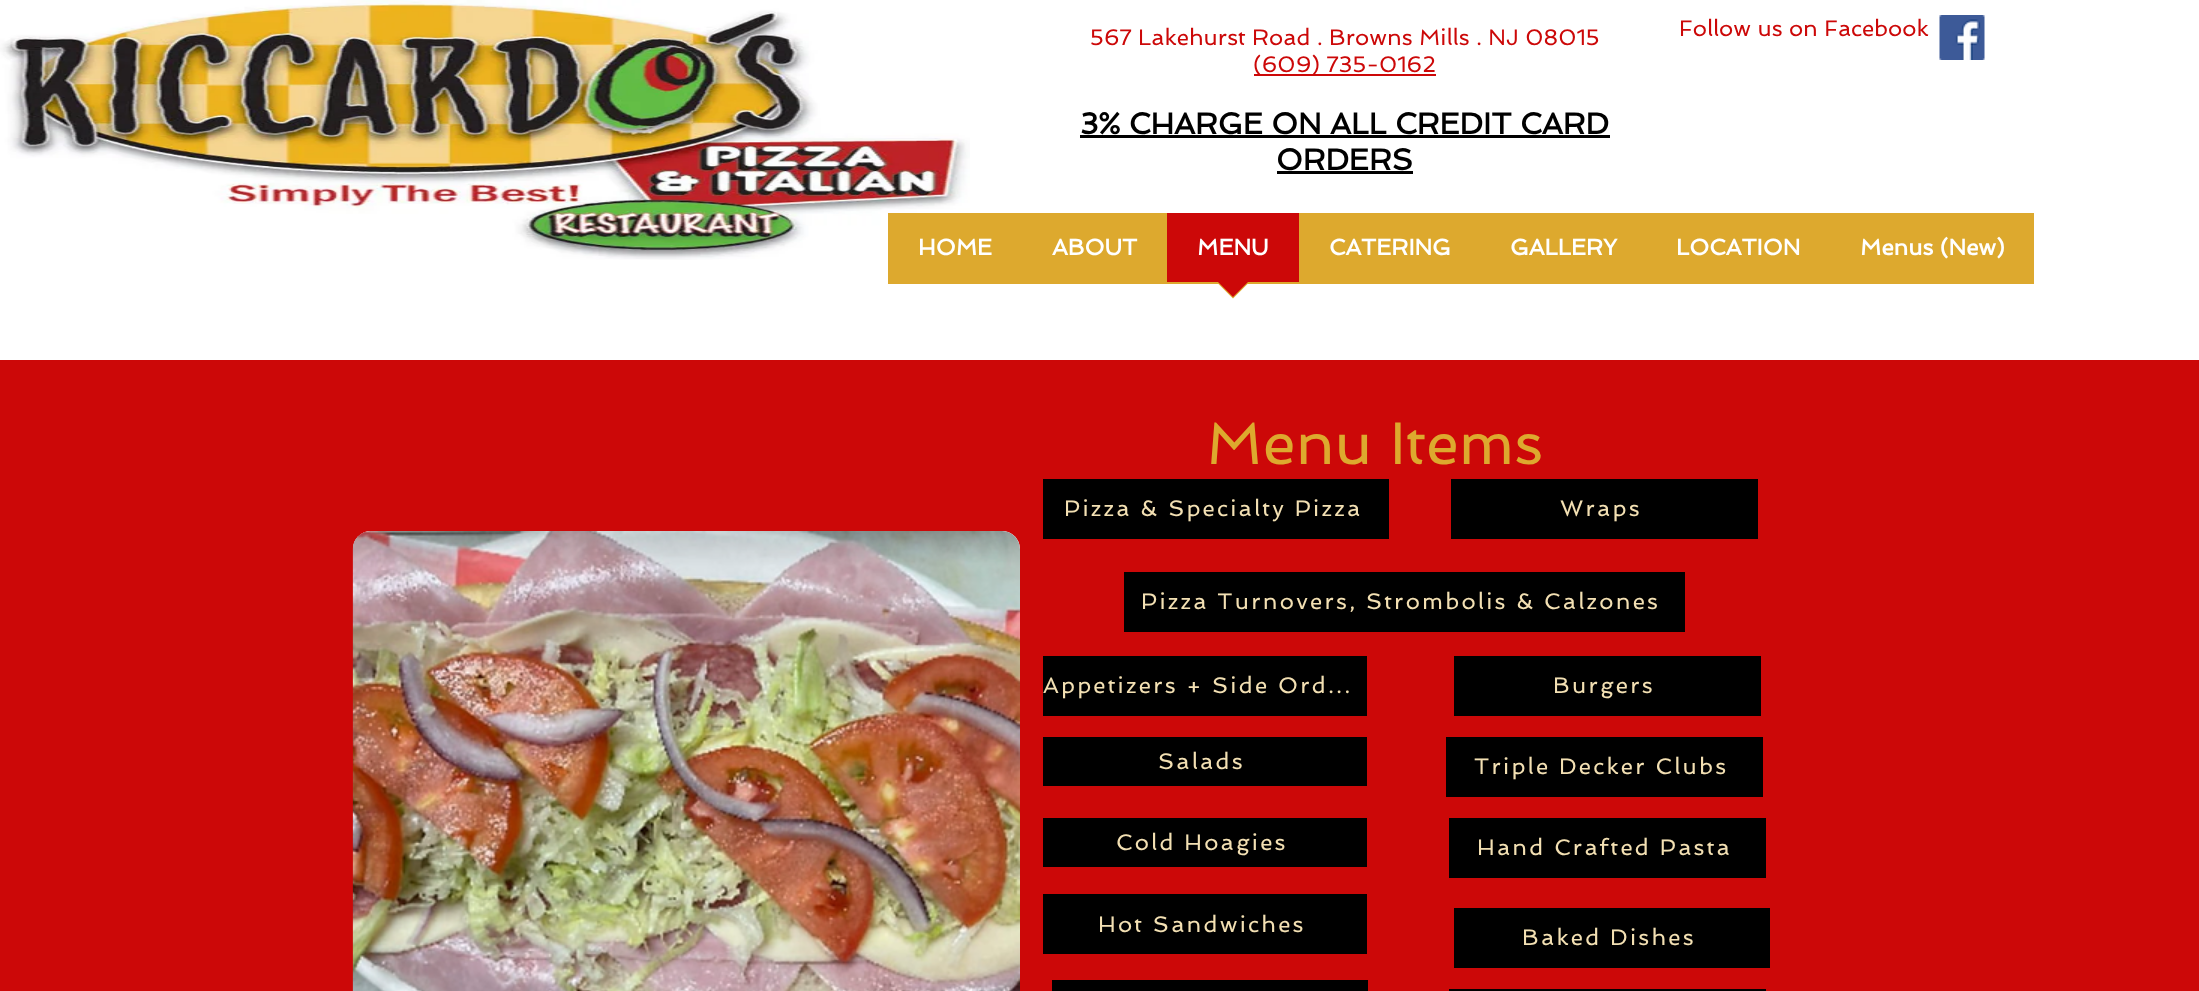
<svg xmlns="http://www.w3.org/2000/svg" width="2199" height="991">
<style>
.a{font:22.5px Spinnaker;fill:#cc0808}
.b{font:bold 30px Spinnaker;fill:#000}
.c{font:bold 22.5px Spinnaker;fill:#fff}
.d{font:60px Spinnaker;fill:#dda92e}
.e{font:22.5px Spinnaker;letter-spacing:2.25px;fill:#f3e0b3}
</style>
<rect width="100%" height="100%" fill="#fff"/>
<image href="1.png" x="0" y="0" width="970" height="260"/>
<path fill="#cc0808" d="M1254 74h182v2H1254z"/>
<path fill="#000" d="M1080 135h530v3H1080z"/>
<path fill="#000" d="M1277 171h136v3H1277z"/>
<image href="2.png" x="1939" y="15" width="46" height="45"/>
<path fill="#dda92e" d="M888 213h1146v71H888z"/>
<path fill="#cc0808" d="M1167 213h132v69H1167z"/>
<path fill="#dda92e" d="M1216.5 282h33l-16.5 16.5z"/>
<path fill="#cc0808" d="M1218 282h30l-15 15z"/>
<path fill="#cc0808" d="M0 360h2199v631H0z"/>
<path fill="#000" d="M1043 479h346v60H1043z"/>
<path fill="#000" d="M1451 479h307v60H1451z"/>
<rect fill="#fdfdfe" x="353" y="531" width="667" height="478" rx="18"/>
<image href="3.png" x="352" y="531" width="668" height="460"/>
<path fill="#000" d="M1124 572h561v60H1124z"/>
<path fill="#000" d="M1043 656h324v60H1043z"/>
<path fill="#000" d="M1454 656h307v60H1454z"/>
<path fill="#000" d="M1043 737h324v49H1043z"/>
<path fill="#000" d="M1446 737h317v60H1446z"/>
<path fill="#000" d="M1043 818h324v49H1043z"/>
<path fill="#000" d="M1449 818h317v60H1449z"/>
<path fill="#000" d="M1043 894h324v60H1043z"/>
<path fill="#000" d="M1454 908h316v60H1454z"/>
<path fill="#000" d="M1052 980h316v11H1052z"/>
<path fill="#000" d="M1449 989h317v2H1449z"/>
<text class="a" x="1090" y="45">567 Lakehurst Road . Browns Mills . NJ 08015</text>
<text class="a" x="1253" y="72">(609) 735-0162</text>
<text class="b" x="1080" y="134">3% CHARGE ON ALL CREDIT CARD</text>
<text class="b" x="1276" y="170">ORDERS</text>
<text class="a" x="1679" y="36">Follow us on Facebook</text>
<text class="c" x="918" y="255">HOME</text>
<text class="c" x="1052" y="255">ABOUT</text>
<text class="c" x="1197" y="255">MENU</text>
<text class="c" x="1329" y="255">CATERING</text>
<text class="c" x="1510" y="255">GALLERY</text>
<text class="c" x="1676" y="255">LOCATION</text>
<text class="c" x="1860" y="255">Menus (New)</text>
<text class="d" x="1206" y="464">Menu Items</text>
<text class="e" x="1064" y="516">Pizza &amp; Specialty Pizza</text>
<text class="e" x="1560" y="516">Wraps</text>
<text class="e" x="1141" y="609">Pizza Turnovers, Strombolis &amp; Calzones</text>
<text class="e" x="1043" y="693">Appetizers + Side Ord...</text>
<text class="e" x="1553" y="693">Burgers</text>
<text class="e" x="1158" y="769">Salads</text>
<text class="e" x="1474" y="774">Triple Decker Clubs</text>
<text class="e" x="1116" y="850">Cold Hoagies</text>
<text class="e" x="1477" y="855">Hand Crafted Pasta</text>
<text class="e" x="1098" y="932">Hot Sandwiches</text>
<text class="e" x="1522" y="945">Baked Dishes</text>
</svg>
